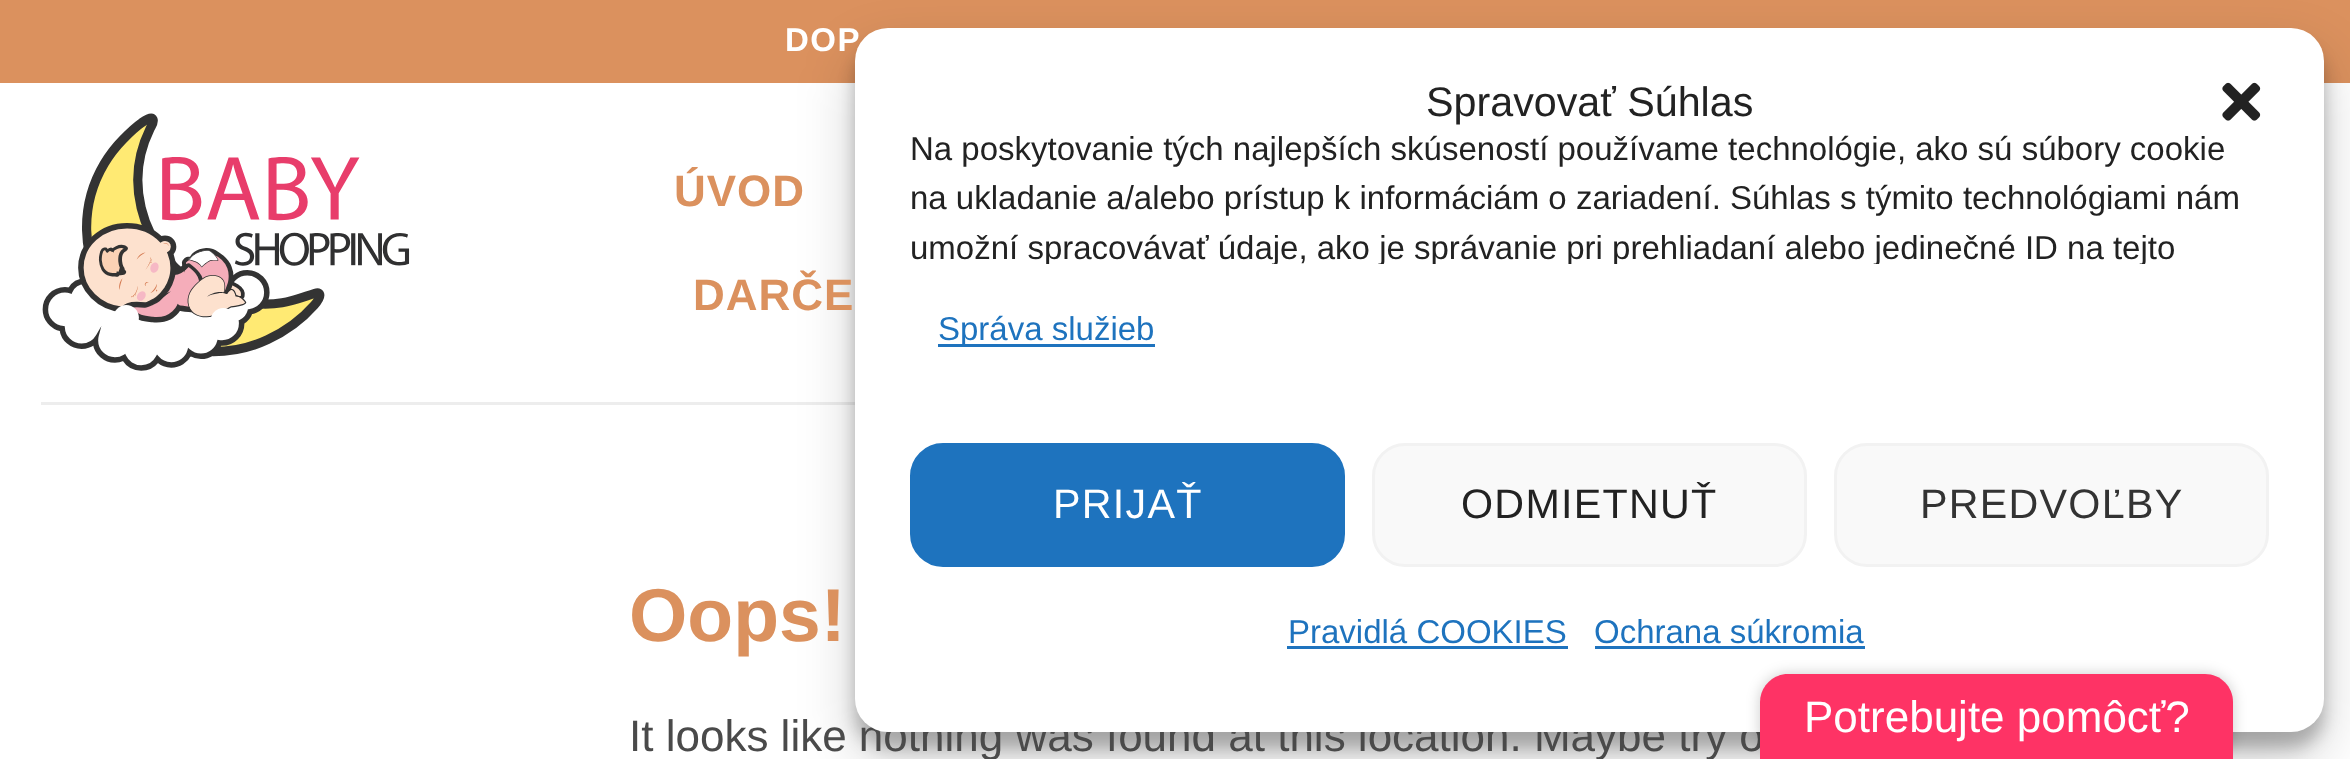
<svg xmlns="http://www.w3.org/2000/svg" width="2350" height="759">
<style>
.a{font:bold 33px Liberation Sans;letter-spacing:1.5px;fill:#fff}
.b{font:bold 44px Liberation Sans;letter-spacing:1px;fill:#db915e}
.c{font:bold 75px Liberation Sans;fill:#db915e}
.d{font:44px Liberation Sans;fill:#4a4a4a}
.e{font:41.25px Liberation Sans;fill:#222}
.f{font:33px Liberation Sans;fill:#222}
.g{font:33px Liberation Sans;fill:#1e73be}
.h{font:41.25px Liberation Sans;letter-spacing:1.25px;fill:#fff}
.i{font:41.25px Liberation Sans;letter-spacing:1.25px;fill:#222}
.j{font:41.25px Liberation Sans;letter-spacing:1.25px;fill:#333}
.k{font:44px Liberation Sans;fill:#fff}
</style>
<defs>
<clipPath id="clip1"><path d="M910 124h1359v140H910z"/></clipPath>
</defs>
<rect width="100%" height="100%" fill="#fff"/>
<path fill="#db915e" d="M0 0h2350v83H0z"/>
<image href="1.png" x="42" y="113" width="368" height="258"/>
<path fill="#ededed" d="M41 402h814v3H41z"/>
<rect fill="#0000003b" filter="blur(8px)" x="855" y="44" width="1469" height="704" rx="33"/>
<rect fill="#00000030" filter="blur(27.5px)" x="855" y="55" width="1469" height="704" rx="33"/>
<text class="a" x="785" y="51">DOP</text>
<text class="b" x="674" y="206">ÚVOD</text>
<text class="b" x="693" y="310">DARČE</text>
<text class="c" x="629" y="641">Oops!</text>
<text class="d" x="629" y="751">It looks like nothing was found at this location. Maybe try o</text>
<rect fill="#fff" x="855" y="28" width="1469" height="704" rx="33"/>
<text class="e" x="1426" y="116">Spravovať Súhlas</text>
<image href="2.png" x="2222" y="82" width="39" height="39"/>
<text class="f" x="910" y="160">Na poskytovanie tých najlepších skúseností používame technológie, ako sú súbory cookie</text>
<text class="f" x="910" y="209">na ukladanie a/alebo prístup k informáciám o zariadení. Súhlas s týmito technológiami nám</text>
<g clip-path="url(#clip1)">
<text class="f" x="910" y="259">umožní spracovávať údaje, ako je správanie pri prehliadaní alebo jedinečné ID na tejto</text>
</g>
<path fill="#1e73be" d="M938 344h217v3H938z"/>
<text class="g" x="938" y="340">Správa služieb</text>
<rect fill="#1e73be" stroke="#1e73be" stroke-width="3" x="911.5" y="444.5" width="432" height="121" rx="31.5"/>
<text class="h" x="1053" y="518">PRIJAŤ</text>
<rect fill="#f9f9f9" stroke="#f2f2f2" stroke-width="3" x="1373.5" y="444.5" width="432" height="121" rx="31.5"/>
<text class="i" x="1461" y="518">ODMIETNUŤ</text>
<rect fill="#f9f9f9" stroke="#f2f2f2" stroke-width="3" x="1835.5" y="444.5" width="432" height="121" rx="31.5"/>
<text class="j" x="1920" y="518">PREDVOĽBY</text>
<text class="g" x="1288" y="643">Pravidlá COOKIES</text>
<path fill="#1e73be" d="M1287 646h281v3H1287z"/>
<text class="g" x="1594" y="643">Ochrana súkromia</text>
<path fill="#1e73be" d="M1595 646h270v3H1595z"/>
<rect fill="#00000033" filter="blur(7px)" x="1760" y="674" width="473" height="85" rx="28"/>
<path fill="#fe3365" d="M1788 674h417c15.5 0 28 12.5 28 28v57h-473v-57c0-15.5 12.5-28 28-28z"/>
<text class="k" x="1804" y="732">Potrebujte pomôcť?</text>
</svg>
